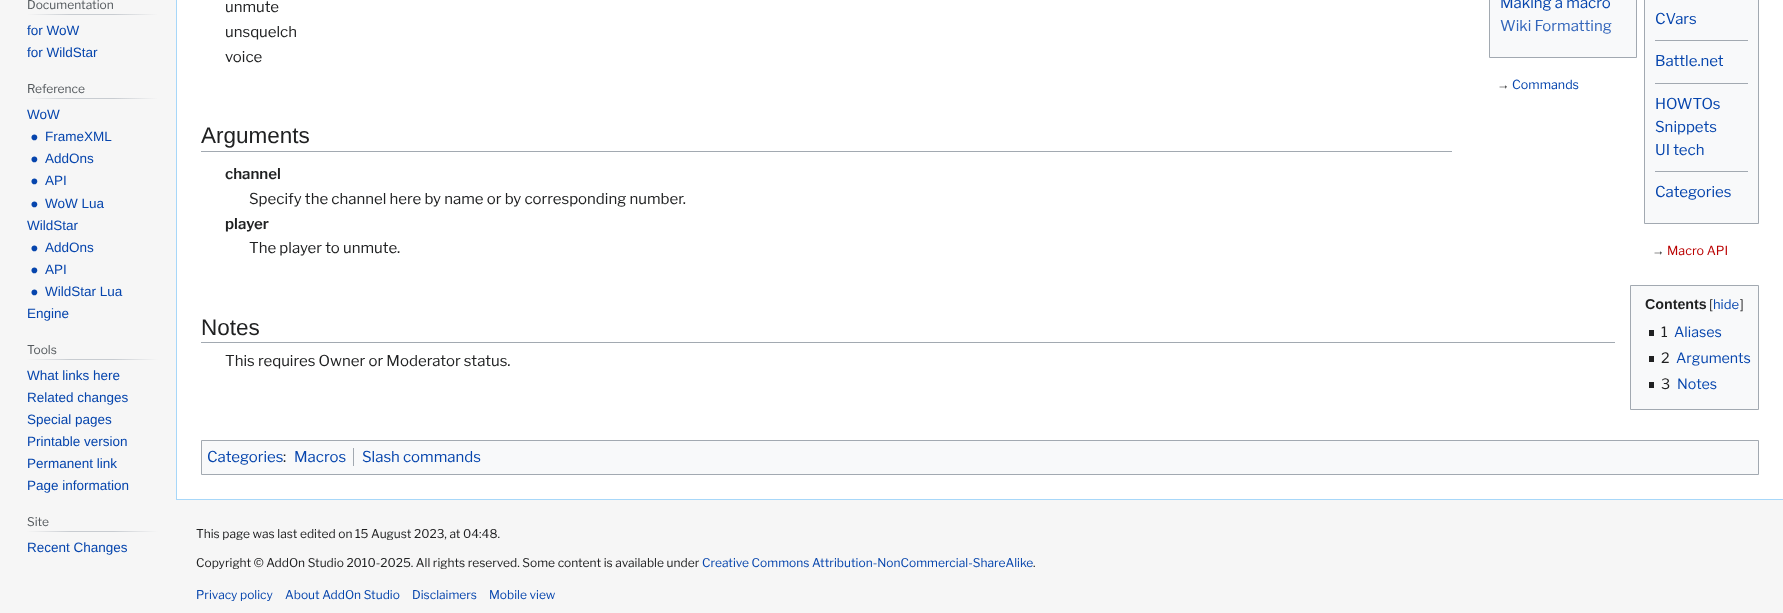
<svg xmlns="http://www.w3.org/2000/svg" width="1783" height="613">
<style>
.a{font:12px Libre Franklin;fill:#54595d}
.b{font:13.5px Liberation Sans;fill:#0645ad}
.c{font:13.5px FreeSans;fill:#0645ad}
.d{font:15px Libre Franklin;fill:#202122}
.e{font:15px Libre Franklin;fill:#0645ad}
.f{font:15px Libre Franklin;fill:#36b}
.g{font:12.5px Liberation Sans;fill:#202122}
.h{font:12.5px Libre Franklin;fill:#0645ad}
.i{font:12.5px Libre Franklin;fill:#ba0000}
.j{font:22.5px Liberation Sans;fill:#202122}
.k{font:600 15px Libre Franklin;fill:#202122}
.l{font:bold 14.25px Liberation Sans;fill:#202122}
.m{font:13px Libre Franklin;fill:#202122}
.n{font:13px Libre Franklin;fill:#0645ad}
.o{font:14.25px Libre Franklin;fill:#202122}
.p{font:14.25px Libre Franklin;fill:#0645ad}
.q{font:12px Libre Franklin;fill:#202122}
.r{font:12px Libre Franklin;fill:#0645ad}
</style>
<defs>
<linearGradient id="g1" gradientUnits="userSpaceOnUse" x1="27" y1="15" x2="158" y2="14"><stop offset="0" stop-color="#f6f6f6"/><stop offset="0.33" stop-color="#c8ccd1"/><stop offset="0.66" stop-color="#c8ccd1"/><stop offset="1" stop-color="#f6f6f6"/></linearGradient>
<linearGradient id="g2" gradientUnits="userSpaceOnUse" x1="27" y1="99" x2="158" y2="99"><stop offset="0" stop-color="#f6f6f6"/><stop offset="0.33" stop-color="#c8ccd1"/><stop offset="0.66" stop-color="#c8ccd1"/><stop offset="1" stop-color="#f6f6f6"/></linearGradient>
<linearGradient id="g3" gradientUnits="userSpaceOnUse" x1="27" y1="360" x2="158" y2="360"><stop offset="0" stop-color="#f6f6f6"/><stop offset="0.33" stop-color="#c8ccd1"/><stop offset="0.66" stop-color="#c8ccd1"/><stop offset="1" stop-color="#f6f6f6"/></linearGradient>
<linearGradient id="g4" gradientUnits="userSpaceOnUse" x1="27" y1="532" x2="158" y2="532"><stop offset="0" stop-color="#f6f6f6"/><stop offset="0.33" stop-color="#c8ccd1"/><stop offset="0.66" stop-color="#c8ccd1"/><stop offset="1" stop-color="#f6f6f6"/></linearGradient>
</defs>
<rect width="100%" height="100%" fill="#f6f6f6"/>
<path fill="url(#g1)" d="M27 14h131v1H27z"/>
<path fill="url(#g2)" d="M27 98h131v1H27z"/>
<path fill="url(#g3)" d="M27 359h131v1H27z"/>
<path fill="url(#g4)" d="M27 531h131v1H27z"/>
<path fill="#fff" d="M177 0h1606v499H177z"/>
<path fill="#a7d7f9" d="M176 499h1607v1H176z"/>
<path fill="#a7d7f9" d="M176 0h1v500H176z"/>
<path fill="#f8f9fa" stroke="#a2a9b1" d="M1489.5 -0.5h147v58H1489.5z"/>
<path fill="#f8f9fa" stroke="#a2a9b1" d="M1644.5 -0.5h114v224H1644.5z"/>
<path fill="#a2a9b1" d="M1655 40h93v1H1655z"/>
<path fill="#a2a9b1" d="M1655 83h93v1H1655z"/>
<path fill="#a2a9b1" d="M1655 171h93v1H1655z"/>
<path fill="#a2a9b1" d="M201 151h1251v1H201z"/>
<path fill="#a2a9b1" d="M201 342h1414v1H201z"/>
<path fill="#f8f9fa" stroke="#a2a9b1" d="M1630.5 285.5h128v124H1630.5z"/>
<path fill="#202122" d="M1649 330h5v6H1649z"/>
<path fill="#202122" d="M1649 356h5v6H1649z"/>
<path fill="#202122" d="M1649 382h5v6H1649z"/>
<path fill="#f8f9fa" stroke="#a2a9b1" d="M201.5 440.5h1557v34H201.5z"/>
<path fill="#a2a9b1" d="M353 448h1v18H353z"/>
<text class="a" x="27" y="9">Documentation</text>
<text class="b" x="27" y="35">for WoW</text>
<text class="b" x="27" y="57">for WildStar</text>
<text class="a" x="27" y="93">Reference</text>
<text class="b" x="27" y="119">WoW</text>
<text class="c" x="31" y="141">⦁</text>
<text class="b" x="45" y="141">FrameXML</text>
<text class="c" x="31" y="163">⦁</text>
<text class="b" x="45" y="163">AddOns</text>
<text class="c" x="31" y="185">⦁</text>
<text class="b" x="45" y="185">API</text>
<text class="c" x="31" y="208">⦁</text>
<text class="b" x="45" y="208">WoW Lua</text>
<text class="b" x="27" y="230">WildStar</text>
<text class="c" x="31" y="252">⦁</text>
<text class="b" x="45" y="252">AddOns</text>
<text class="c" x="31" y="274">⦁</text>
<text class="b" x="45" y="274">API</text>
<text class="c" x="31" y="296">⦁</text>
<text class="b" x="45" y="296">WildStar Lua</text>
<text class="b" x="27" y="318">Engine</text>
<text class="a" x="27" y="354">Tools</text>
<text class="b" x="27" y="380">What links here</text>
<text class="b" x="27" y="402">Related changes</text>
<text class="b" x="27" y="424">Special pages</text>
<text class="b" x="27" y="446">Printable version</text>
<text class="b" x="27" y="468">Permanent link</text>
<text class="b" x="27" y="490">Page information</text>
<text class="a" x="27" y="526">Site</text>
<text class="b" x="27" y="552">Recent Changes</text>
<text class="d" x="225" y="12">unmute</text>
<text class="d" x="225" y="37">unsquelch</text>
<text class="d" x="225" y="62">voice</text>
<text class="e" x="1500" y="8">Making a macro</text>
<text class="f" x="1500" y="31">Wiki Formatting</text>
<text class="g" x="1497" y="89">→</text>
<text class="h" x="1512" y="89">Commands</text>
<text class="e" x="1655" y="24">CVars</text>
<text class="e" x="1655" y="66">Battle.net</text>
<text class="e" x="1655" y="109">HOWTOs</text>
<text class="e" x="1655" y="132">Snippets</text>
<text class="e" x="1655" y="155">UI tech</text>
<text class="e" x="1655" y="197">Categories</text>
<text class="g" x="1652" y="255">→</text>
<text class="i" x="1667" y="255">Macro API</text>
<text class="j" x="201" y="143">Arguments</text>
<text class="k" x="225" y="179">channel</text>
<text class="d" x="249" y="204">Specify the channel here by name or by corresponding number.</text>
<text class="k" x="225" y="229">player</text>
<text class="d" x="249" y="253">The player to unmute.</text>
<text class="j" x="201" y="335">Notes</text>
<text class="l" x="1645" y="309">Contents</text>
<text class="m" x="1709" y="309">[</text>
<text class="n" x="1713" y="309">hide</text>
<text class="m" x="1740" y="309">]</text>
<text class="o" x="1661" y="337">1</text>
<text class="p" x="1674" y="337">Aliases</text>
<text class="o" x="1661" y="363">2</text>
<text class="p" x="1676" y="363">Arguments</text>
<text class="o" x="1661" y="389">3</text>
<text class="p" x="1677" y="389">Notes</text>
<text class="d" x="225" y="366">This requires Owner or Moderator status.</text>
<text class="e" x="207" y="462">Categories</text>
<text class="d" x="283" y="462">:</text>
<text class="e" x="294" y="462">Macros</text>
<text class="e" x="362" y="462">Slash commands</text>
<text class="q" x="196" y="538">This page was last edited on 15 August 2023, at 04:48.</text>
<text class="q" x="196" y="567">Copyright © AddOn Studio 2010-2025. All rights reserved. Some content is available under</text>
<text class="r" x="702" y="567">Creative Commons Attribution-NonCommercial-ShareAlike</text>
<text class="q" x="1033" y="567">.</text>
<text class="r" x="196" y="599">Privacy policy</text>
<text class="r" x="285" y="599">About AddOn Studio</text>
<text class="r" x="412" y="599">Disclaimers</text>
<text class="r" x="489" y="599">Mobile view</text>
</svg>
